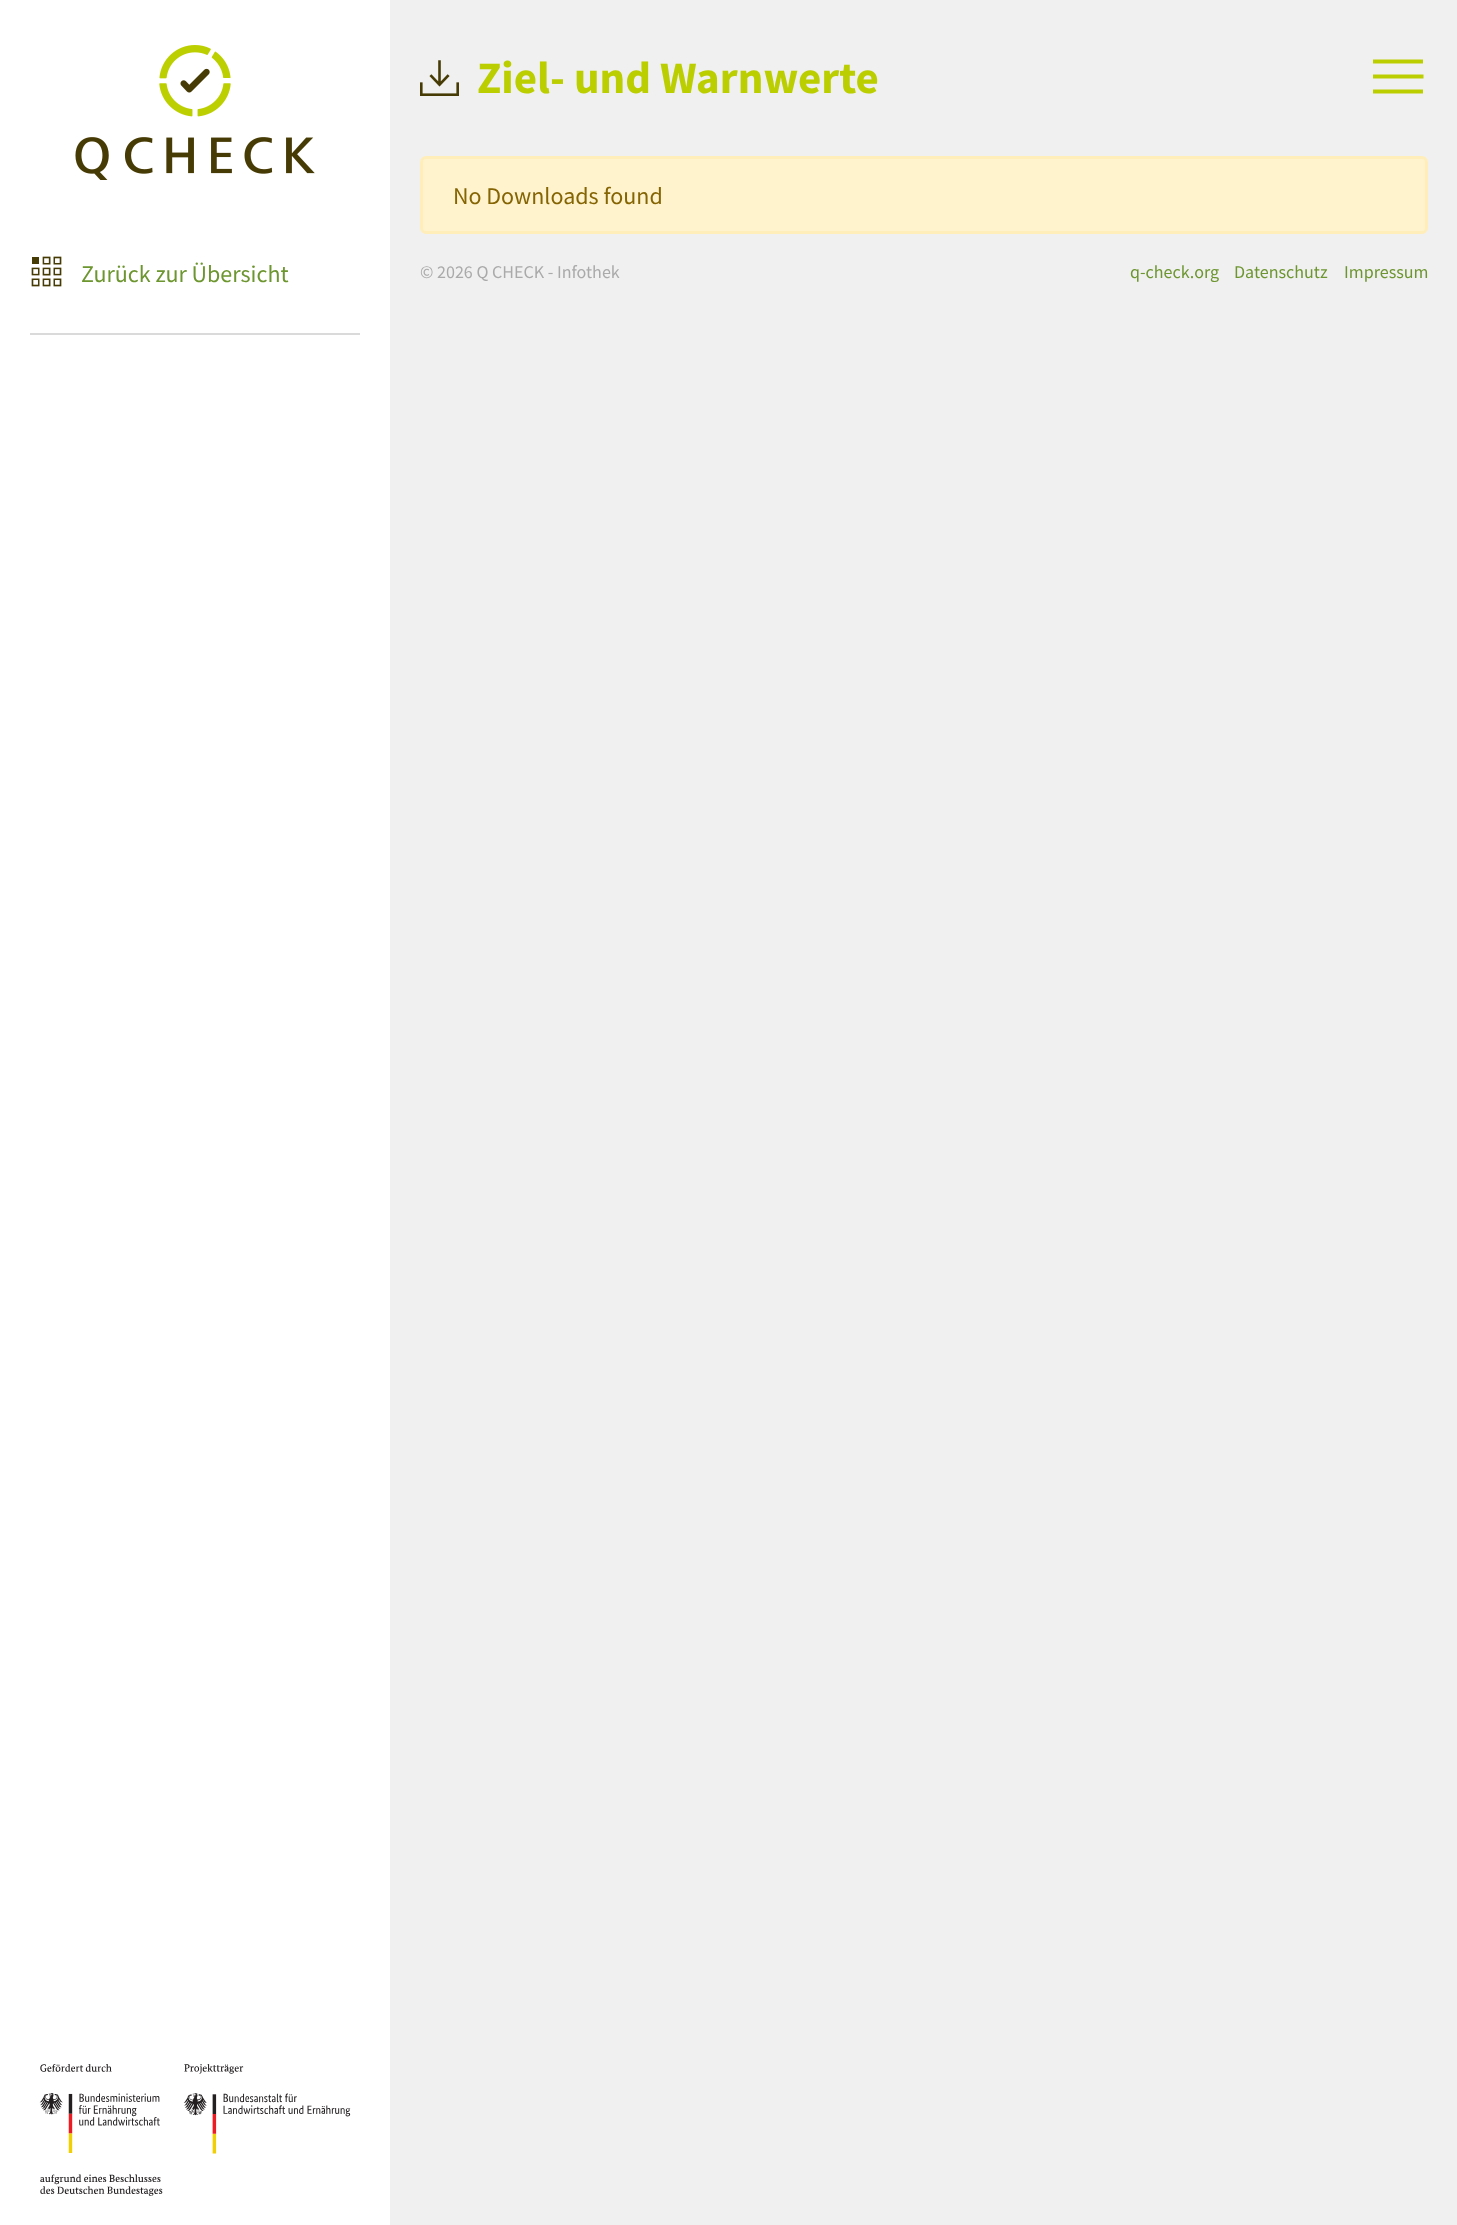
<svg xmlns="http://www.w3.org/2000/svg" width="1457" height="2225">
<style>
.a{font:24px Source Sans Pro;fill:#6d9630}
.b{font:bold 45px Source Sans Pro;fill:#bbce00}
.c{font:24px Source Sans Pro;fill:#856404}
.d{font:18px Source Sans Pro;fill:#aaa}
.e{font:18px Source Sans Pro;fill:#6d9630}
</style>
<rect width="100%" height="100%" fill="#f0f0f0"/>
<path fill="#fff" d="M0 0h390v2225H0z"/>
<image href="1.png" x="75" y="45" width="240" height="135"/>
<path fill="#dadada" d="M30 333h330v2H30z"/>
<image href="2.png" x="31" y="256" width="31" height="31"/>
<image href="3.png" x="39" y="2064" width="312" height="132"/>
<image href="4.png" x="420" y="60" width="39" height="36"/>
<path fill="none" stroke="#bbce00" stroke-width="3.8" d="M1373 61.5h50m-50 15h50.5m-50.5 15h50"/>
<rect fill="#fff3cd" stroke="#ffeeba" stroke-width="3" x="421.5" y="157.5" width="1005" height="75" rx="4.5"/>
<text class="a" x="81" y="282">Zurück zur Übersicht</text>
<text class="b" x="477" y="93">Ziel- und Warnwerte</text>
<text class="c" x="453" y="204">No Downloads found</text>
<text class="d" x="420" y="278">© 2026 Q CHECK - Infothek</text>
<text class="e" x="1130" y="278">q-check.org</text>
<text class="e" x="1234" y="278">Datenschutz</text>
<text class="e" x="1344" y="278">Impressum</text>
</svg>
